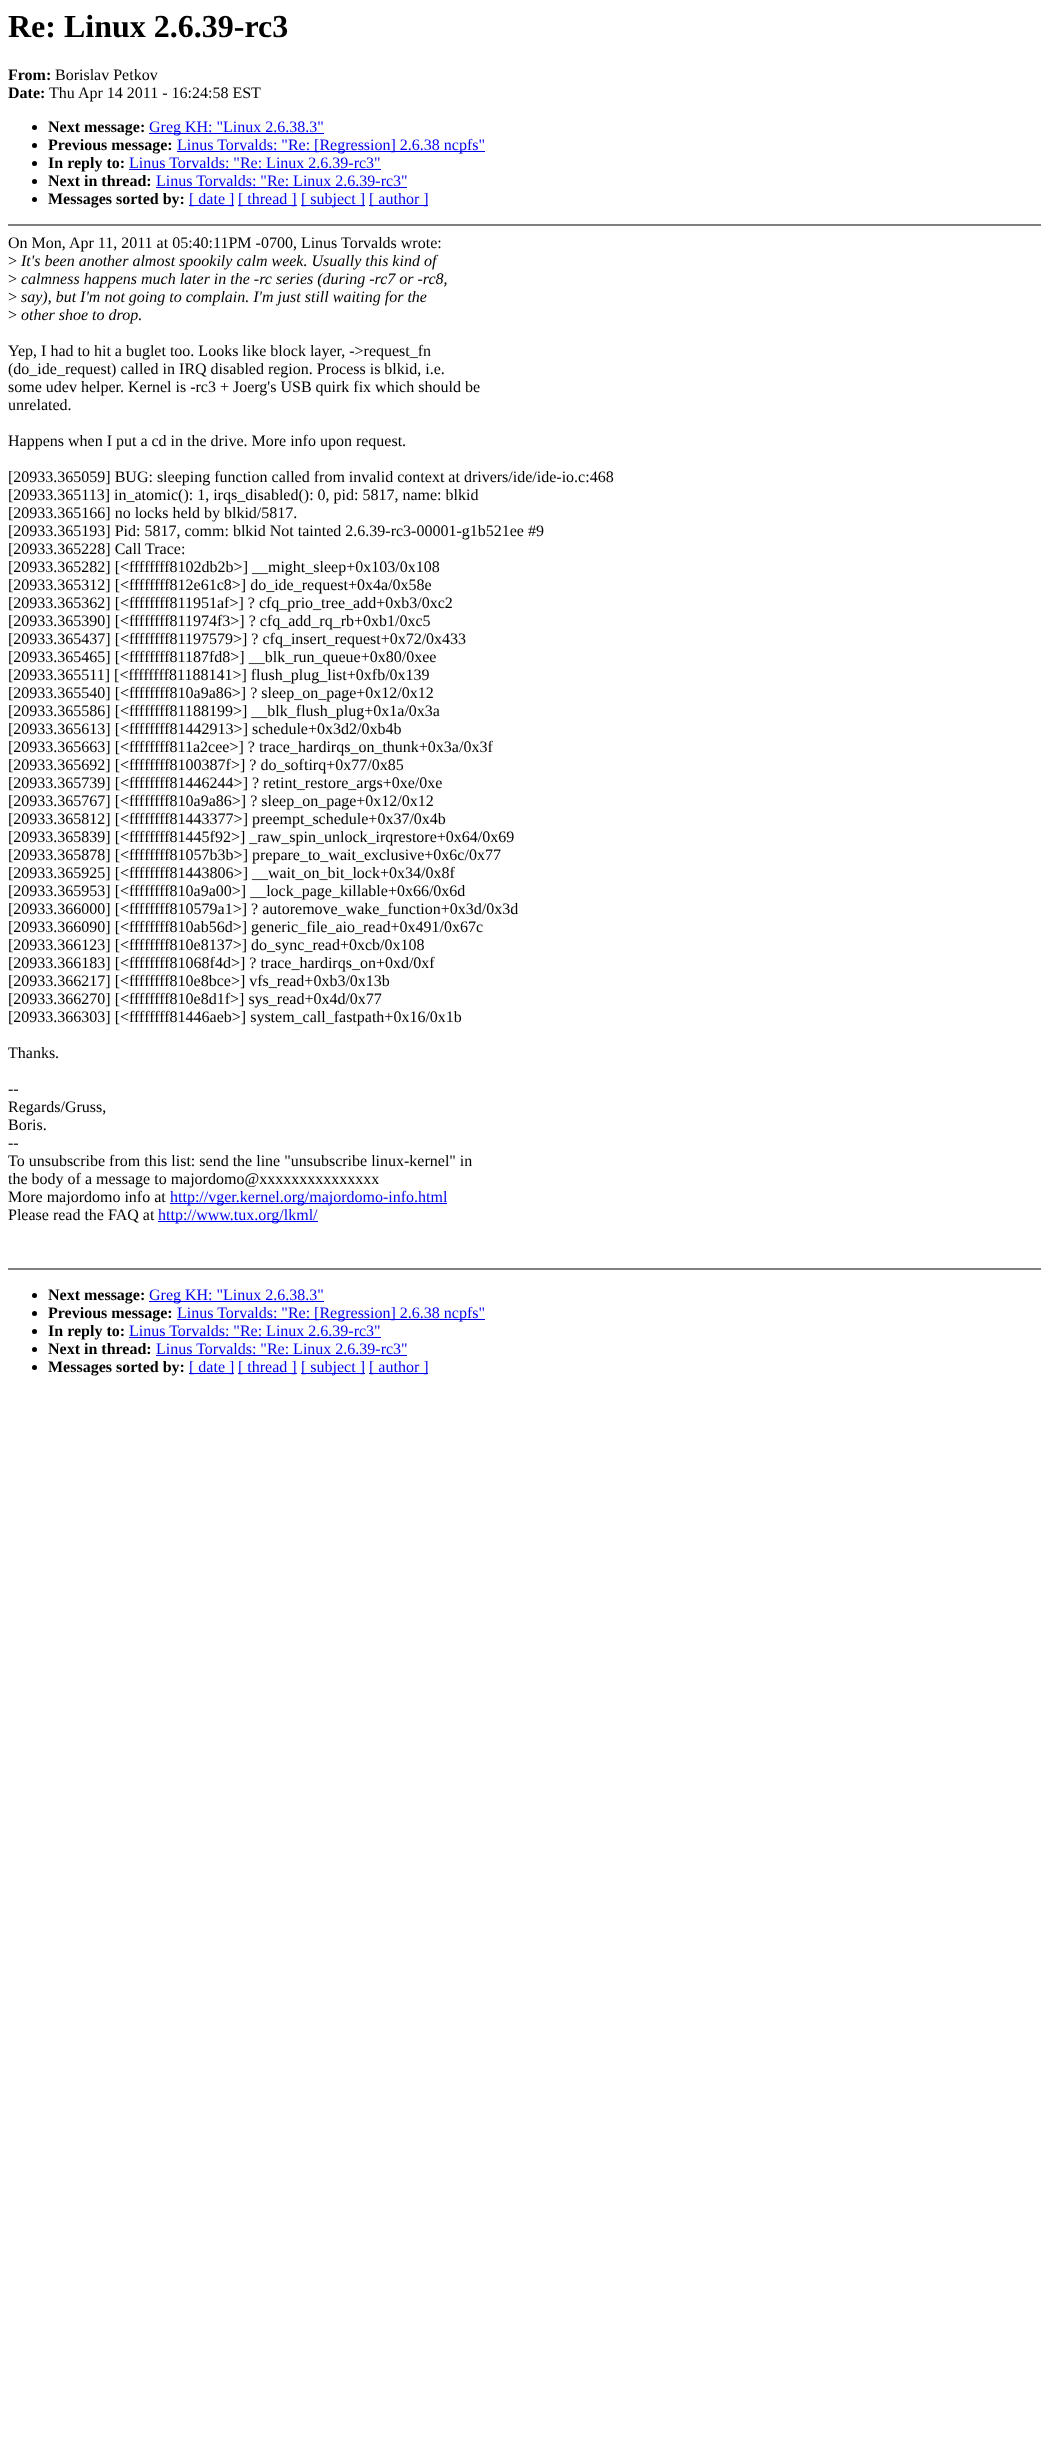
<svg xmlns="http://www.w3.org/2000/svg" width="1049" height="2452">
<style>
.a{font:bold 32px Liberation Serif;fill:#000}
.b{font:bold 16px Liberation Serif;fill:#000}
.c{font:16px Liberation Serif;fill:#000}
.d{font:16px Liberation Serif;fill:#00e}
.e{font:italic 16px Liberation Serif;fill:#000}
</style>
<rect width="100%" height="100%" fill="#fff"/>
<circle fill="#000" cx="34.5" cy="127.5" r="2.5"/>
<path fill="#00e" d="M149 133h175v1H149z"/>
<circle fill="#000" cx="34.5" cy="145.5" r="2.5"/>
<path fill="#00e" d="M177 151h308v1H177z"/>
<circle fill="#000" cx="34.5" cy="163.5" r="2.5"/>
<path fill="#00e" d="M129 169h252v1H129z"/>
<circle fill="#000" cx="34.5" cy="181.5" r="2.5"/>
<path fill="#00e" d="M156 187h251v1H156z"/>
<circle fill="#000" cx="34.5" cy="199.5" r="2.5"/>
<path fill="#00e" d="M189 205h45v1H189z"/>
<path fill="#00e" d="M238 205h59v1H238z"/>
<path fill="#00e" d="M301 205h64v1H301z"/>
<path fill="#00e" d="M369 205h59v1H369z"/>
<path fill="#808080" d="M8 224h1033v2H8z"/>
<path fill="#00e" d="M170 1203h277v1H170z"/>
<path fill="#00e" d="M158 1221h160v1H158z"/>
<path fill="#808080" d="M8 1268h1033v2H8z"/>
<circle fill="#000" cx="34.5" cy="1295.5" r="2.5"/>
<path fill="#00e" d="M149 1301h175v1H149z"/>
<circle fill="#000" cx="34.5" cy="1313.5" r="2.5"/>
<path fill="#00e" d="M177 1319h308v1H177z"/>
<circle fill="#000" cx="34.5" cy="1331.5" r="2.5"/>
<path fill="#00e" d="M129 1337h252v1H129z"/>
<circle fill="#000" cx="34.5" cy="1349.5" r="2.5"/>
<path fill="#00e" d="M156 1355h251v1H156z"/>
<circle fill="#000" cx="34.5" cy="1367.5" r="2.5"/>
<path fill="#00e" d="M189 1373h45v1H189z"/>
<path fill="#00e" d="M238 1373h59v1H238z"/>
<path fill="#00e" d="M301 1373h64v1H301z"/>
<path fill="#00e" d="M369 1373h59v1H369z"/>
<text class="a" x="8" y="37">Re: Linux 2.6.39-rc3</text>
<text class="b" x="8" y="80">From:</text>
<text class="c" x="55" y="80">Borislav Petkov</text>
<text class="b" x="8" y="98">Date:</text>
<text class="c" x="49" y="98">Thu Apr 14 2011 - 16:24:58 EST</text>
<text class="b" x="48" y="132">Next message:</text>
<text class="d" x="149" y="132">Greg KH: "Linux 2.6.38.3"</text>
<text class="b" x="48" y="150">Previous message:</text>
<text class="d" x="177" y="150">Linus Torvalds: "Re: [Regression] 2.6.38 ncpfs"</text>
<text class="b" x="48" y="168">In reply to:</text>
<text class="d" x="129" y="168">Linus Torvalds: "Re: Linux 2.6.39-rc3"</text>
<text class="b" x="48" y="186">Next in thread:</text>
<text class="d" x="156" y="186">Linus Torvalds: "Re: Linux 2.6.39-rc3"</text>
<text class="b" x="48" y="204">Messages sorted by:</text>
<text class="d" x="189" y="204">[ date ]</text>
<text class="d" x="238" y="204">[ thread ]</text>
<text class="d" x="301" y="204">[ subject ]</text>
<text class="d" x="369" y="204">[ author ]</text>
<text class="c" x="8" y="248">On Mon, Apr 11, 2011 at 05:40:11PM -0700, Linus Torvalds wrote:</text>
<text class="c" x="8" y="266">&gt;</text>
<text class="e" x="21" y="266">It's been another almost spookily calm week. Usually this kind of</text>
<text class="c" x="8" y="284">&gt;</text>
<text class="e" x="21" y="284">calmness happens much later in the -rc series (during -rc7 or -rc8,</text>
<text class="c" x="8" y="302">&gt;</text>
<text class="e" x="21" y="302">say), but I'm not going to complain. I'm just still waiting for the</text>
<text class="c" x="8" y="320">&gt;</text>
<text class="e" x="21" y="320">other shoe to drop.</text>
<text class="c" x="8" y="356">Yep, I had to hit a buglet too. Looks like block layer, -&gt;request_fn</text>
<text class="c" x="8" y="374">(do_ide_request) called in IRQ disabled region. Process is blkid, i.e.</text>
<text class="c" x="8" y="392">some udev helper. Kernel is -rc3 + Joerg's USB quirk fix which should be</text>
<text class="c" x="8" y="410">unrelated.</text>
<text class="c" x="8" y="446">Happens when I put a cd in the drive. More info upon request.</text>
<text class="c" x="8" y="482">[20933.365059] BUG: sleeping function called from invalid context at drivers/ide/ide-io.c:468</text>
<text class="c" x="8" y="500">[20933.365113] in_atomic(): 1, irqs_disabled(): 0, pid: 5817, name: blkid</text>
<text class="c" x="8" y="518">[20933.365166] no locks held by blkid/5817.</text>
<text class="c" x="8" y="536">[20933.365193] Pid: 5817, comm: blkid Not tainted 2.6.39-rc3-00001-g1b521ee #9</text>
<text class="c" x="8" y="554">[20933.365228] Call Trace:</text>
<text class="c" x="8" y="572">[20933.365282] [&lt;ffffffff8102db2b&gt;] __might_sleep+0x103/0x108</text>
<text class="c" x="8" y="590">[20933.365312] [&lt;ffffffff812e61c8&gt;] do_ide_request+0x4a/0x58e</text>
<text class="c" x="8" y="608">[20933.365362] [&lt;ffffffff811951af&gt;] ? cfq_prio_tree_add+0xb3/0xc2</text>
<text class="c" x="8" y="626">[20933.365390] [&lt;ffffffff811974f3&gt;] ? cfq_add_rq_rb+0xb1/0xc5</text>
<text class="c" x="8" y="644">[20933.365437] [&lt;ffffffff81197579&gt;] ? cfq_insert_request+0x72/0x433</text>
<text class="c" x="8" y="662">[20933.365465] [&lt;ffffffff81187fd8&gt;] __blk_run_queue+0x80/0xee</text>
<text class="c" x="8" y="680">[20933.365511] [&lt;ffffffff81188141&gt;] flush_plug_list+0xfb/0x139</text>
<text class="c" x="8" y="698">[20933.365540] [&lt;ffffffff810a9a86&gt;] ? sleep_on_page+0x12/0x12</text>
<text class="c" x="8" y="716">[20933.365586] [&lt;ffffffff81188199&gt;] __blk_flush_plug+0x1a/0x3a</text>
<text class="c" x="8" y="734">[20933.365613] [&lt;ffffffff81442913&gt;] schedule+0x3d2/0xb4b</text>
<text class="c" x="8" y="752">[20933.365663] [&lt;ffffffff811a2cee&gt;] ? trace_hardirqs_on_thunk+0x3a/0x3f</text>
<text class="c" x="8" y="770">[20933.365692] [&lt;ffffffff8100387f&gt;] ? do_softirq+0x77/0x85</text>
<text class="c" x="8" y="788">[20933.365739] [&lt;ffffffff81446244&gt;] ? retint_restore_args+0xe/0xe</text>
<text class="c" x="8" y="806">[20933.365767] [&lt;ffffffff810a9a86&gt;] ? sleep_on_page+0x12/0x12</text>
<text class="c" x="8" y="824">[20933.365812] [&lt;ffffffff81443377&gt;] preempt_schedule+0x37/0x4b</text>
<text class="c" x="8" y="842">[20933.365839] [&lt;ffffffff81445f92&gt;] _raw_spin_unlock_irqrestore+0x64/0x69</text>
<text class="c" x="8" y="860">[20933.365878] [&lt;ffffffff81057b3b&gt;] prepare_to_wait_exclusive+0x6c/0x77</text>
<text class="c" x="8" y="878">[20933.365925] [&lt;ffffffff81443806&gt;] __wait_on_bit_lock+0x34/0x8f</text>
<text class="c" x="8" y="896">[20933.365953] [&lt;ffffffff810a9a00&gt;] __lock_page_killable+0x66/0x6d</text>
<text class="c" x="8" y="914">[20933.366000] [&lt;ffffffff810579a1&gt;] ? autoremove_wake_function+0x3d/0x3d</text>
<text class="c" x="8" y="932">[20933.366090] [&lt;ffffffff810ab56d&gt;] generic_file_aio_read+0x491/0x67c</text>
<text class="c" x="8" y="950">[20933.366123] [&lt;ffffffff810e8137&gt;] do_sync_read+0xcb/0x108</text>
<text class="c" x="8" y="968">[20933.366183] [&lt;ffffffff81068f4d&gt;] ? trace_hardirqs_on+0xd/0xf</text>
<text class="c" x="8" y="986">[20933.366217] [&lt;ffffffff810e8bce&gt;] vfs_read+0xb3/0x13b</text>
<text class="c" x="8" y="1004">[20933.366270] [&lt;ffffffff810e8d1f&gt;] sys_read+0x4d/0x77</text>
<text class="c" x="8" y="1022">[20933.366303] [&lt;ffffffff81446aeb&gt;] system_call_fastpath+0x16/0x1b</text>
<text class="c" x="8" y="1058">Thanks.</text>
<text class="c" x="8" y="1094">--</text>
<text class="c" x="8" y="1112">Regards/Gruss,</text>
<text class="c" x="8" y="1130">Boris.</text>
<text class="c" x="8" y="1148">--</text>
<text class="c" x="8" y="1166">To unsubscribe from this list: send the line "unsubscribe linux-kernel" in</text>
<text class="c" x="8" y="1184">the body of a message to majordomo@xxxxxxxxxxxxxxx</text>
<text class="c" x="8" y="1202">More majordomo info at</text>
<text class="d" x="170" y="1202">http://vger.kernel.org/majordomo-info.html</text>
<text class="c" x="8" y="1220">Please read the FAQ at</text>
<text class="d" x="158" y="1220">http://www.tux.org/lkml/</text>
<text class="b" x="48" y="1300">Next message:</text>
<text class="d" x="149" y="1300">Greg KH: "Linux 2.6.38.3"</text>
<text class="b" x="48" y="1318">Previous message:</text>
<text class="d" x="177" y="1318">Linus Torvalds: "Re: [Regression] 2.6.38 ncpfs"</text>
<text class="b" x="48" y="1336">In reply to:</text>
<text class="d" x="129" y="1336">Linus Torvalds: "Re: Linux 2.6.39-rc3"</text>
<text class="b" x="48" y="1354">Next in thread:</text>
<text class="d" x="156" y="1354">Linus Torvalds: "Re: Linux 2.6.39-rc3"</text>
<text class="b" x="48" y="1372">Messages sorted by:</text>
<text class="d" x="189" y="1372">[ date ]</text>
<text class="d" x="238" y="1372">[ thread ]</text>
<text class="d" x="301" y="1372">[ subject ]</text>
<text class="d" x="369" y="1372">[ author ]</text>
</svg>
